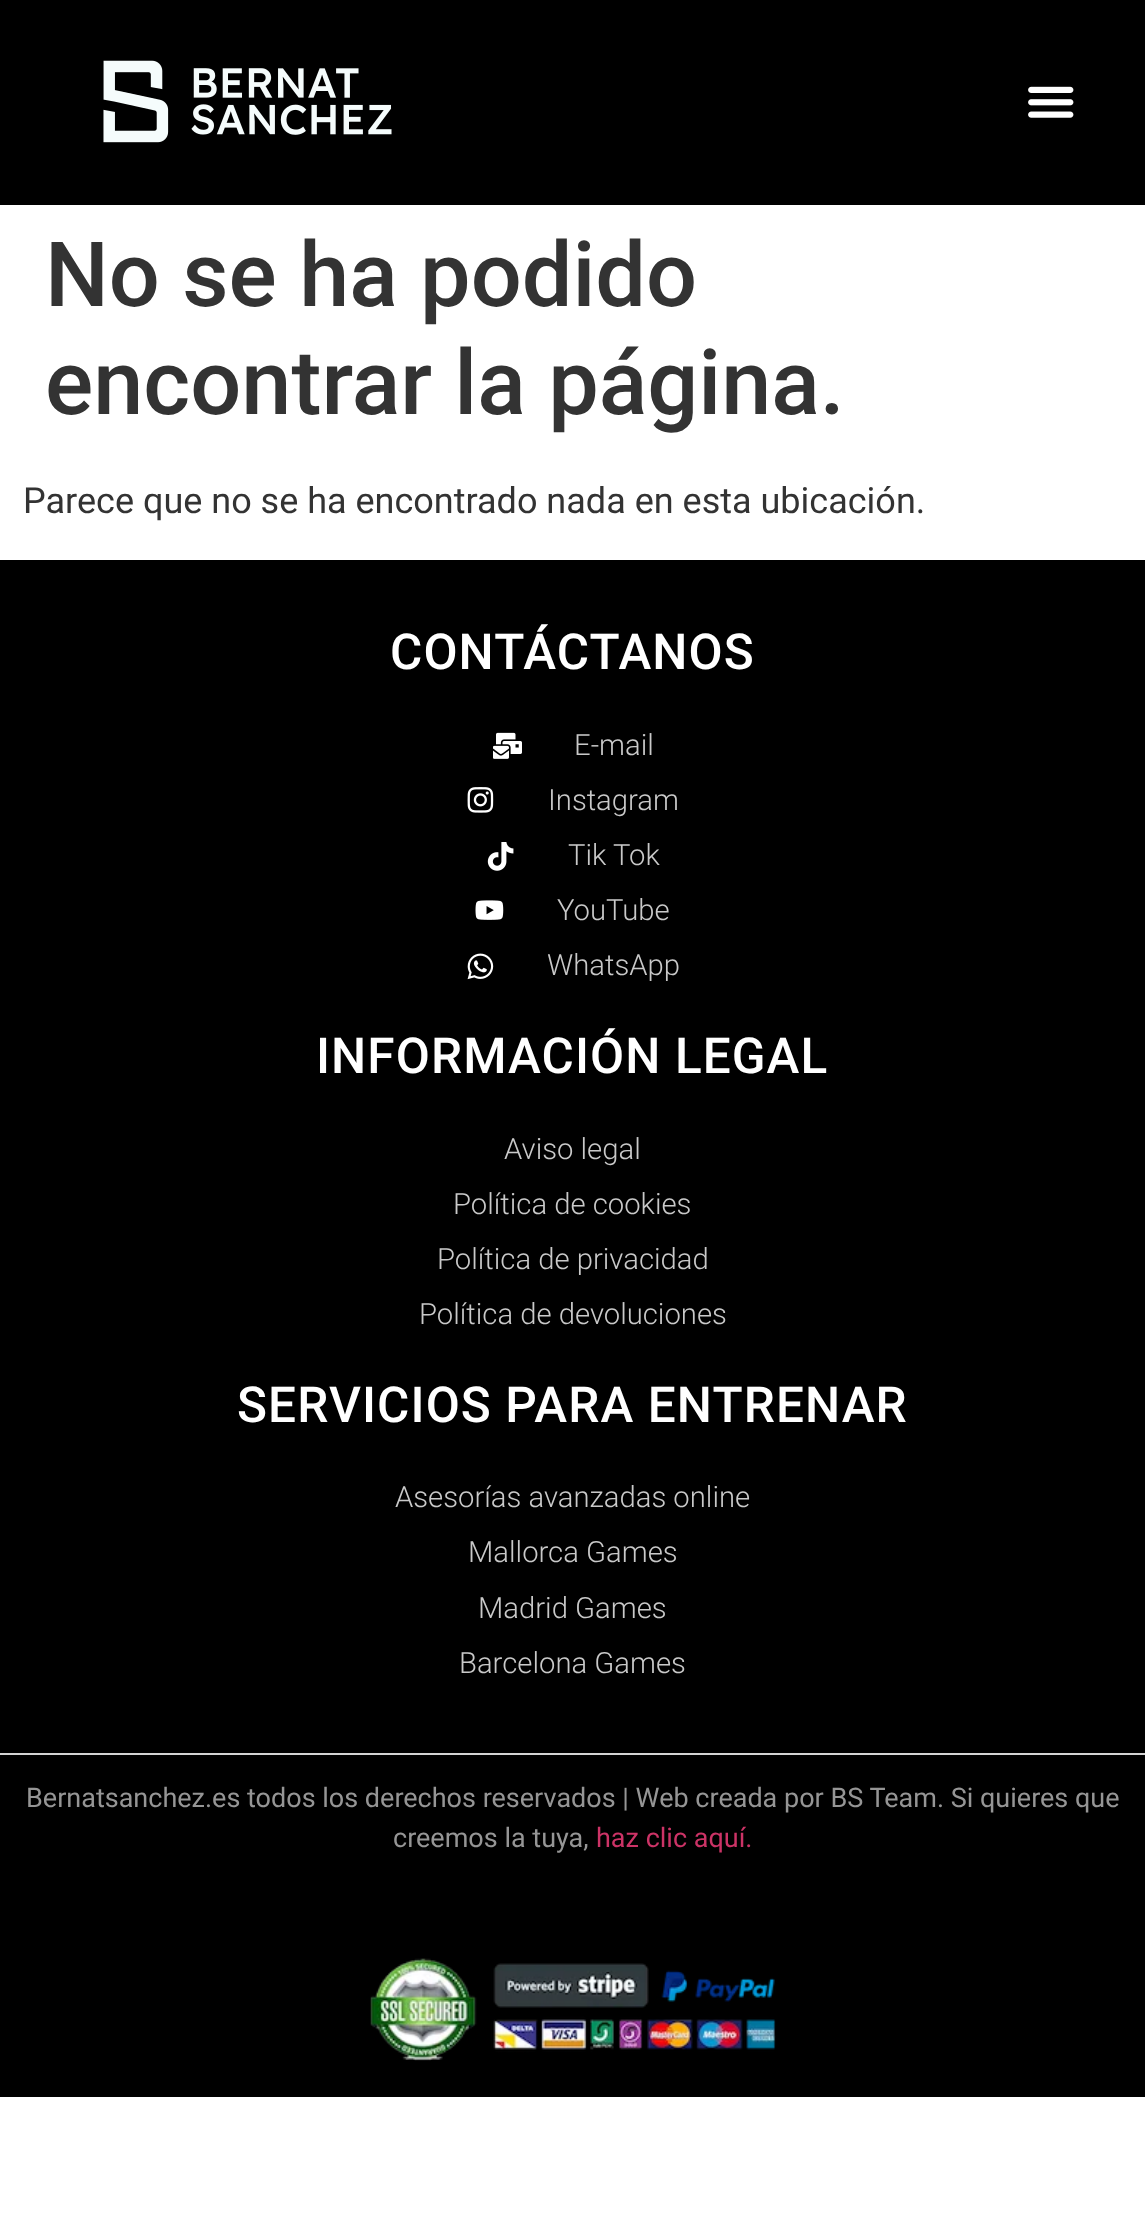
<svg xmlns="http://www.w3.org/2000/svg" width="1145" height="2238">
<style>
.a{font:500 90px Roboto;fill:#333}
.b{font:36px Roboto;fill:#333}
.c{font:500 49.5px Roboto;letter-spacing:1.1px;fill:#fff}
.d{font:300 29.25px Roboto;fill:#c9c9c9}
.e{font:27px Roboto;fill:#959595}
.f{font:27px Roboto;fill:#c36}
</style>
<rect width="100%" height="100%" fill="#fff"/>
<path fill="#000" d="M0 0h1145v205H0z"/>
<image href="1.png" x="103" y="60" width="289" height="83"/>
<image href="2.png" x="1028" y="86" width="46" height="32"/>
<path fill="#000" d="M0 560h1145v1193H0z"/>
<image href="3.png" x="493" y="732" width="29" height="27"/>
<image href="4.png" x="467" y="787" width="27" height="26"/>
<image href="5.png" x="487" y="842" width="27" height="29"/>
<image href="6.png" x="475" y="900" width="29" height="20"/>
<image href="7.png" x="467" y="953" width="27" height="27"/>
<path fill="#000" d="M0 1755h1145v342H0z"/>
<path fill="#d3d3d3" d="M0 1753h1145v2H0z"/>
<image href="8.png" x="370" y="1958" width="406" height="103"/>
<text class="a" x="45" y="306">No se ha podido</text>
<text class="a" x="45" y="414">encontrar la página.</text>
<text class="b" x="23" y="513">Parece que no se ha encontrado nada en esta ubicación.</text>
<text class="c" x="390" y="669">CONTÁCTANOS</text>
<text class="d" x="574" y="755">E-mail</text>
<text class="d" x="548" y="810">Instagram</text>
<text class="d" x="568" y="865">Tik Tok</text>
<text class="d" x="557" y="920">YouTube</text>
<text class="d" x="547" y="975">WhatsApp</text>
<text class="c" x="316" y="1073">INFORMACIÓN LEGAL</text>
<text class="d" x="504" y="1159">Aviso legal</text>
<text class="d" x="453" y="1214">Política de cookies</text>
<text class="d" x="437" y="1269">Política de privacidad</text>
<text class="d" x="419" y="1324">Política de devoluciones</text>
<text class="c" x="237" y="1422">SERVICIOS PARA ENTRENAR</text>
<text class="d" x="395" y="1507">Asesorías avanzadas online</text>
<text class="d" x="468" y="1562">Mallorca Games</text>
<text class="d" x="478" y="1618">Madrid Games</text>
<text class="d" x="459" y="1673">Barcelona Games</text>
<text class="e" x="26" y="1807">Bernatsanchez.es todos los derechos reservados | Web creada por BS Team. Si quieres que</text>
<text class="e" x="393" y="1847">creemos la tuya,</text>
<text class="f" x="596" y="1847">haz clic aquí.</text>
</svg>
